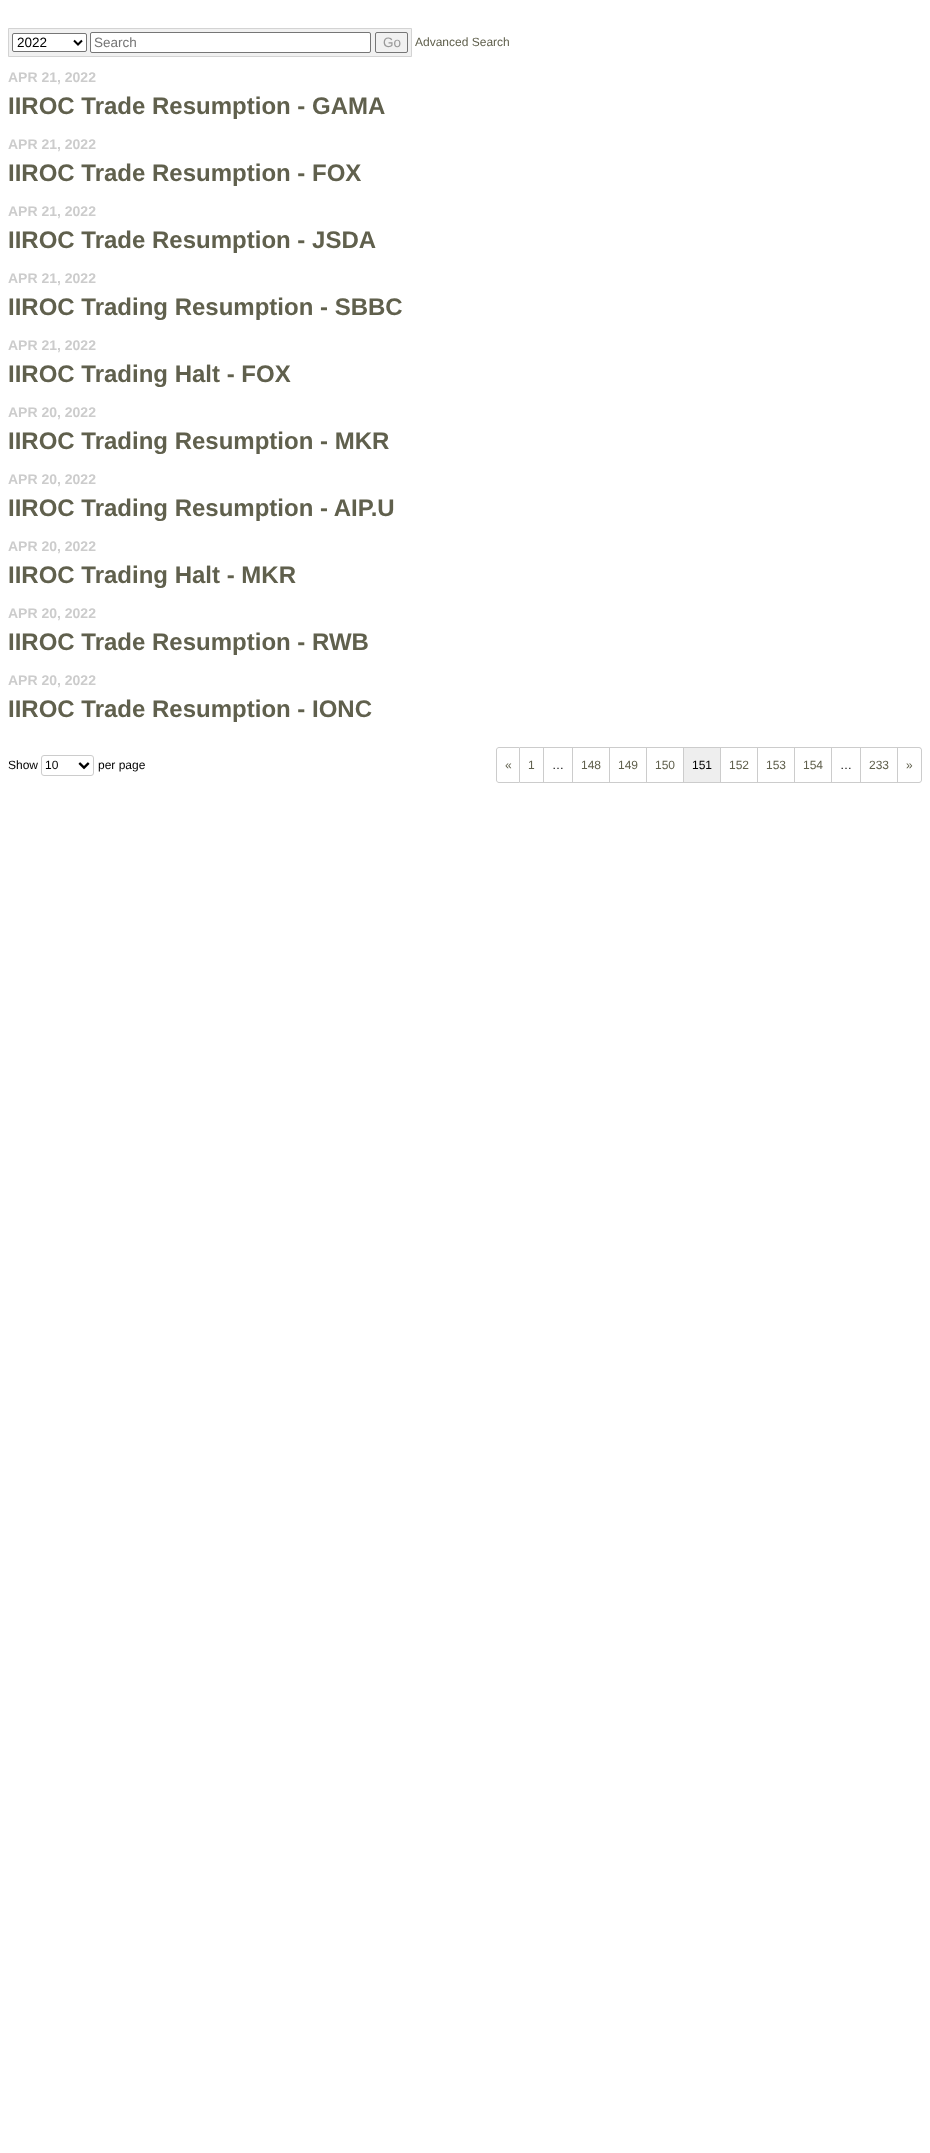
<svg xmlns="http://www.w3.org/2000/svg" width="930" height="2153">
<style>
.a{font:13.5px Liberation Sans;fill:#000}
.b{font:13.5px Liberation Sans;fill:#757575}
.c{font:13.5px Liberation Sans;fill:#999}
.d{font:12px Liberation Sans;fill:#60604d}
.e{font:bold 14px Liberation Sans;fill:#ccc}
.f{font:bold 24px Liberation Sans;fill:#60604d}
.g{font:12px Liberation Sans;fill:#000}
</style>
<rect width="100%" height="100%" fill="#fff"/>
<path fill="#f1f1f1" stroke="#d3d3d3" d="M8.5 28.5h403v28H8.5z"/>
<rect fill="#fff" stroke="#767676" x="12.5" y="33.5" width="74" height="18" rx="1.5"/>
<path fill="none" stroke="#000" stroke-width="2" d="M74 40.5l4 4l4-4"/>
<rect fill="#fff" stroke="#767676" x="90.5" y="32.5" width="280" height="20" rx="1.5"/>
<rect fill="none" stroke="#767676" x="375.5" y="32.5" width="32" height="20" rx="1.5"/>
<rect fill="none" stroke="#ccc" x="41.5" y="755.5" width="52" height="20" rx="2.5"/>
<image href="1.png" x="78" y="762" width="12" height="8"/>
<path fill="none" stroke="#ccc" d="M499 747.5h20.5v35h-20.5c-1.5 0-2.5-1-2.5-2.5v-30c0-1.5 1-2.5 2.5-2.5z"/>
<path fill="#ccc" d="M520 747h378v1H520z"/>
<path fill="#ccc" d="M543 747h1v36H543z"/>
<path fill="#ccc" d="M520 782h24v1H520z"/>
<path fill="#ccc" d="M572 747h1v36H572z"/>
<path fill="#ccc" d="M544 782h29v1H544z"/>
<path fill="#ccc" d="M609 747h1v36H609z"/>
<path fill="#ccc" d="M573 782h37v1H573z"/>
<path fill="#ccc" d="M646 747h1v36H646z"/>
<path fill="#ccc" d="M610 782h37v1H610z"/>
<path fill="#ccc" d="M683 747h1v36H683z"/>
<path fill="#ccc" d="M647 782h37v1H647z"/>
<path fill="#eee" d="M684 748h36v34H684z"/>
<path fill="#ccc" d="M720 747h1v36H720z"/>
<path fill="#ccc" d="M684 782h37v1H684z"/>
<path fill="#ccc" d="M757 747h1v36H757z"/>
<path fill="#ccc" d="M721 782h37v1H721z"/>
<path fill="#ccc" d="M794 747h1v36H794z"/>
<path fill="#ccc" d="M758 782h37v1H758z"/>
<path fill="#ccc" d="M831 747h1v36H831z"/>
<path fill="#ccc" d="M795 782h37v1H795z"/>
<path fill="#ccc" d="M860 747h1v36H860z"/>
<path fill="#ccc" d="M832 782h29v1H832z"/>
<path fill="#ccc" d="M897 747h1v36H897z"/>
<path fill="#ccc" d="M861 782h37v1H861z"/>
<path fill="#ccc" fill-rule="evenodd" d="M898 747h21c1.5 0 3 1.5 3 3v30c0 1.5-1.5 3-3 3h-21zm0 1h21c1 0 2 1 2 2v30c0 1-1 2-2 2h-21z"/>
<text class="a" x="17" y="47">2022</text>
<text class="b" x="94" y="47">Search</text>
<text class="c" x="383" y="47">Go</text>
<text class="d" x="415" y="46">Advanced Search</text>
<text class="e" x="8" y="82">APR 21, 2022</text>
<text class="f" x="8" y="114">IIROC Trade Resumption - GAMA</text>
<text class="e" x="8" y="149">APR 21, 2022</text>
<text class="f" x="8" y="181">IIROC Trade Resumption - FOX</text>
<text class="e" x="8" y="216">APR 21, 2022</text>
<text class="f" x="8" y="248">IIROC Trade Resumption - JSDA</text>
<text class="e" x="8" y="283">APR 21, 2022</text>
<text class="f" x="8" y="315">IIROC Trading Resumption - SBBC</text>
<text class="e" x="8" y="350">APR 21, 2022</text>
<text class="f" x="8" y="382">IIROC Trading Halt - FOX</text>
<text class="e" x="8" y="417">APR 20, 2022</text>
<text class="f" x="8" y="449">IIROC Trading Resumption - MKR</text>
<text class="e" x="8" y="484">APR 20, 2022</text>
<text class="f" x="8" y="516">IIROC Trading Resumption - AIP.U</text>
<text class="e" x="8" y="551">APR 20, 2022</text>
<text class="f" x="8" y="583">IIROC Trading Halt - MKR</text>
<text class="e" x="8" y="618">APR 20, 2022</text>
<text class="f" x="8" y="650">IIROC Trade Resumption - RWB</text>
<text class="e" x="8" y="685">APR 20, 2022</text>
<text class="f" x="8" y="717">IIROC Trade Resumption - IONC</text>
<text class="g" x="8" y="769">Show</text>
<text class="g" x="45" y="769">10</text>
<text class="g" x="98" y="769">per page</text>
<text class="d" x="505" y="769">«</text>
<text class="d" x="528" y="769">1</text>
<text class="g" x="552" y="769">…</text>
<text class="d" x="581" y="769">148</text>
<text class="d" x="618" y="769">149</text>
<text class="d" x="655" y="769">150</text>
<text class="g" x="692" y="769">151</text>
<text class="d" x="729" y="769">152</text>
<text class="d" x="766" y="769">153</text>
<text class="d" x="803" y="769">154</text>
<text class="g" x="840" y="769">…</text>
<text class="d" x="869" y="769">233</text>
<text class="d" x="906" y="769">»</text>
</svg>
